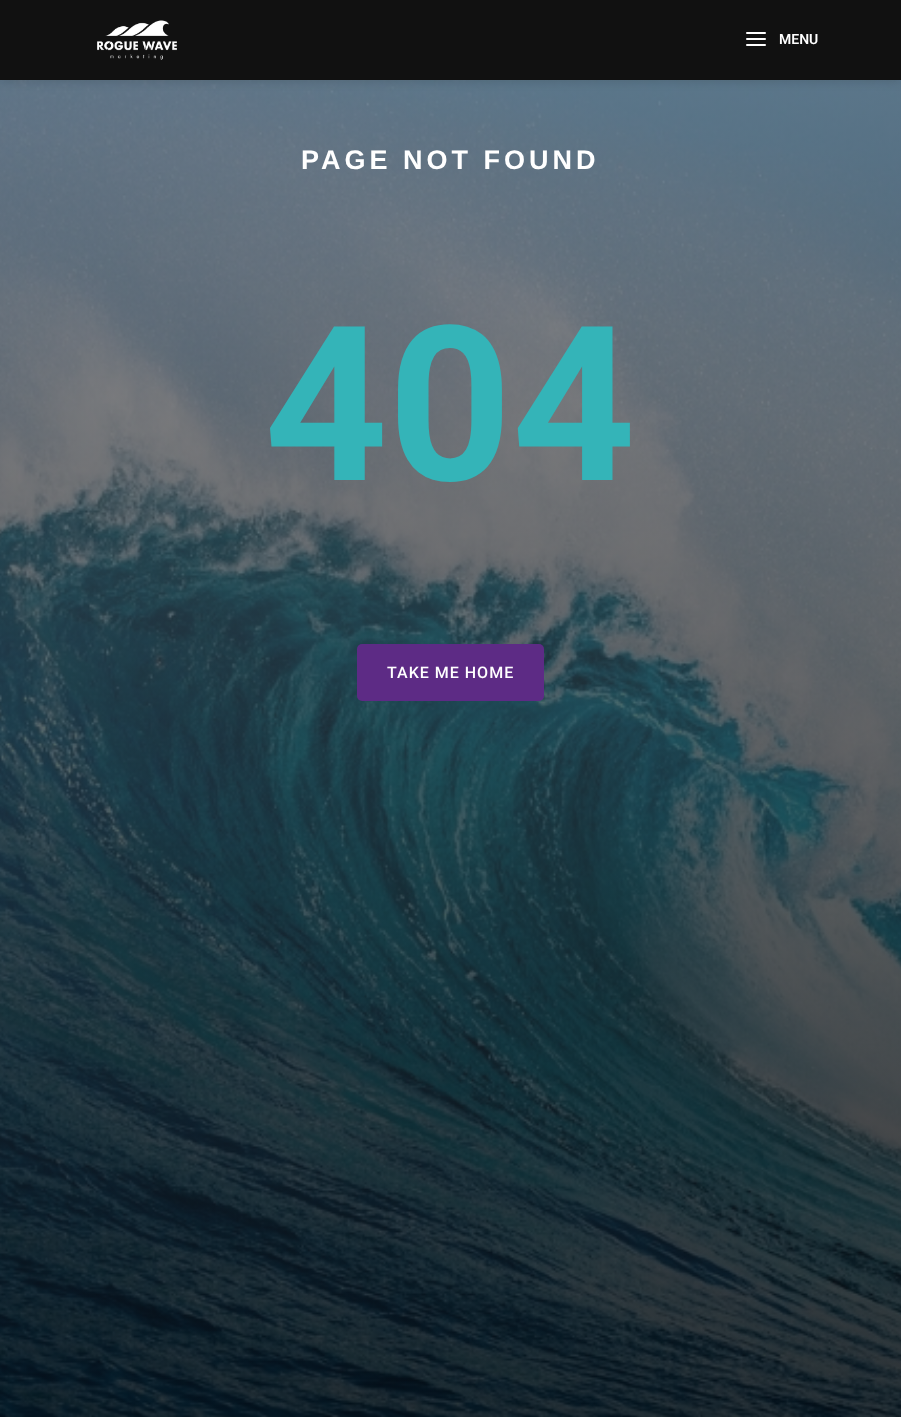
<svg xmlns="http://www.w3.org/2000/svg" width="901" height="1417">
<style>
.a{font:600 14px Roboto;fill:#fff}
.b{font:bold 27px Liberation Sans;letter-spacing:4px;fill:#fff}
.c{font:bold 216px Roboto;fill:#34b4b8}
.d{font:500 16px Roboto;letter-spacing:1px;fill:#fff}
</style>
<rect width="100%" height="100%" fill="#fff"/>
<image href="3.png" x="0" y="80" width="901" height="1337"/>
<path fill="#0000001f" filter="blur(5px)" d="M0 2h901v80H0z"/>
<path fill="#111" d="M0 0h901v80H0z"/>
<image href="1.png" x="97" y="20" width="80" height="40"/>
<image href="2.png" x="746" y="32" width="20" height="14"/>
<rect fill="#5d2b85" x="357" y="644" width="187" height="57" rx="5"/>
<text class="a" x="779" y="44">MENU</text>
<text class="b" x="301" y="169">PAGE NOT FOUND</text>
<text class="c" x="264" y="480">404</text>
<text class="d" x="387" y="678">TAKE ME HOME</text>
</svg>
